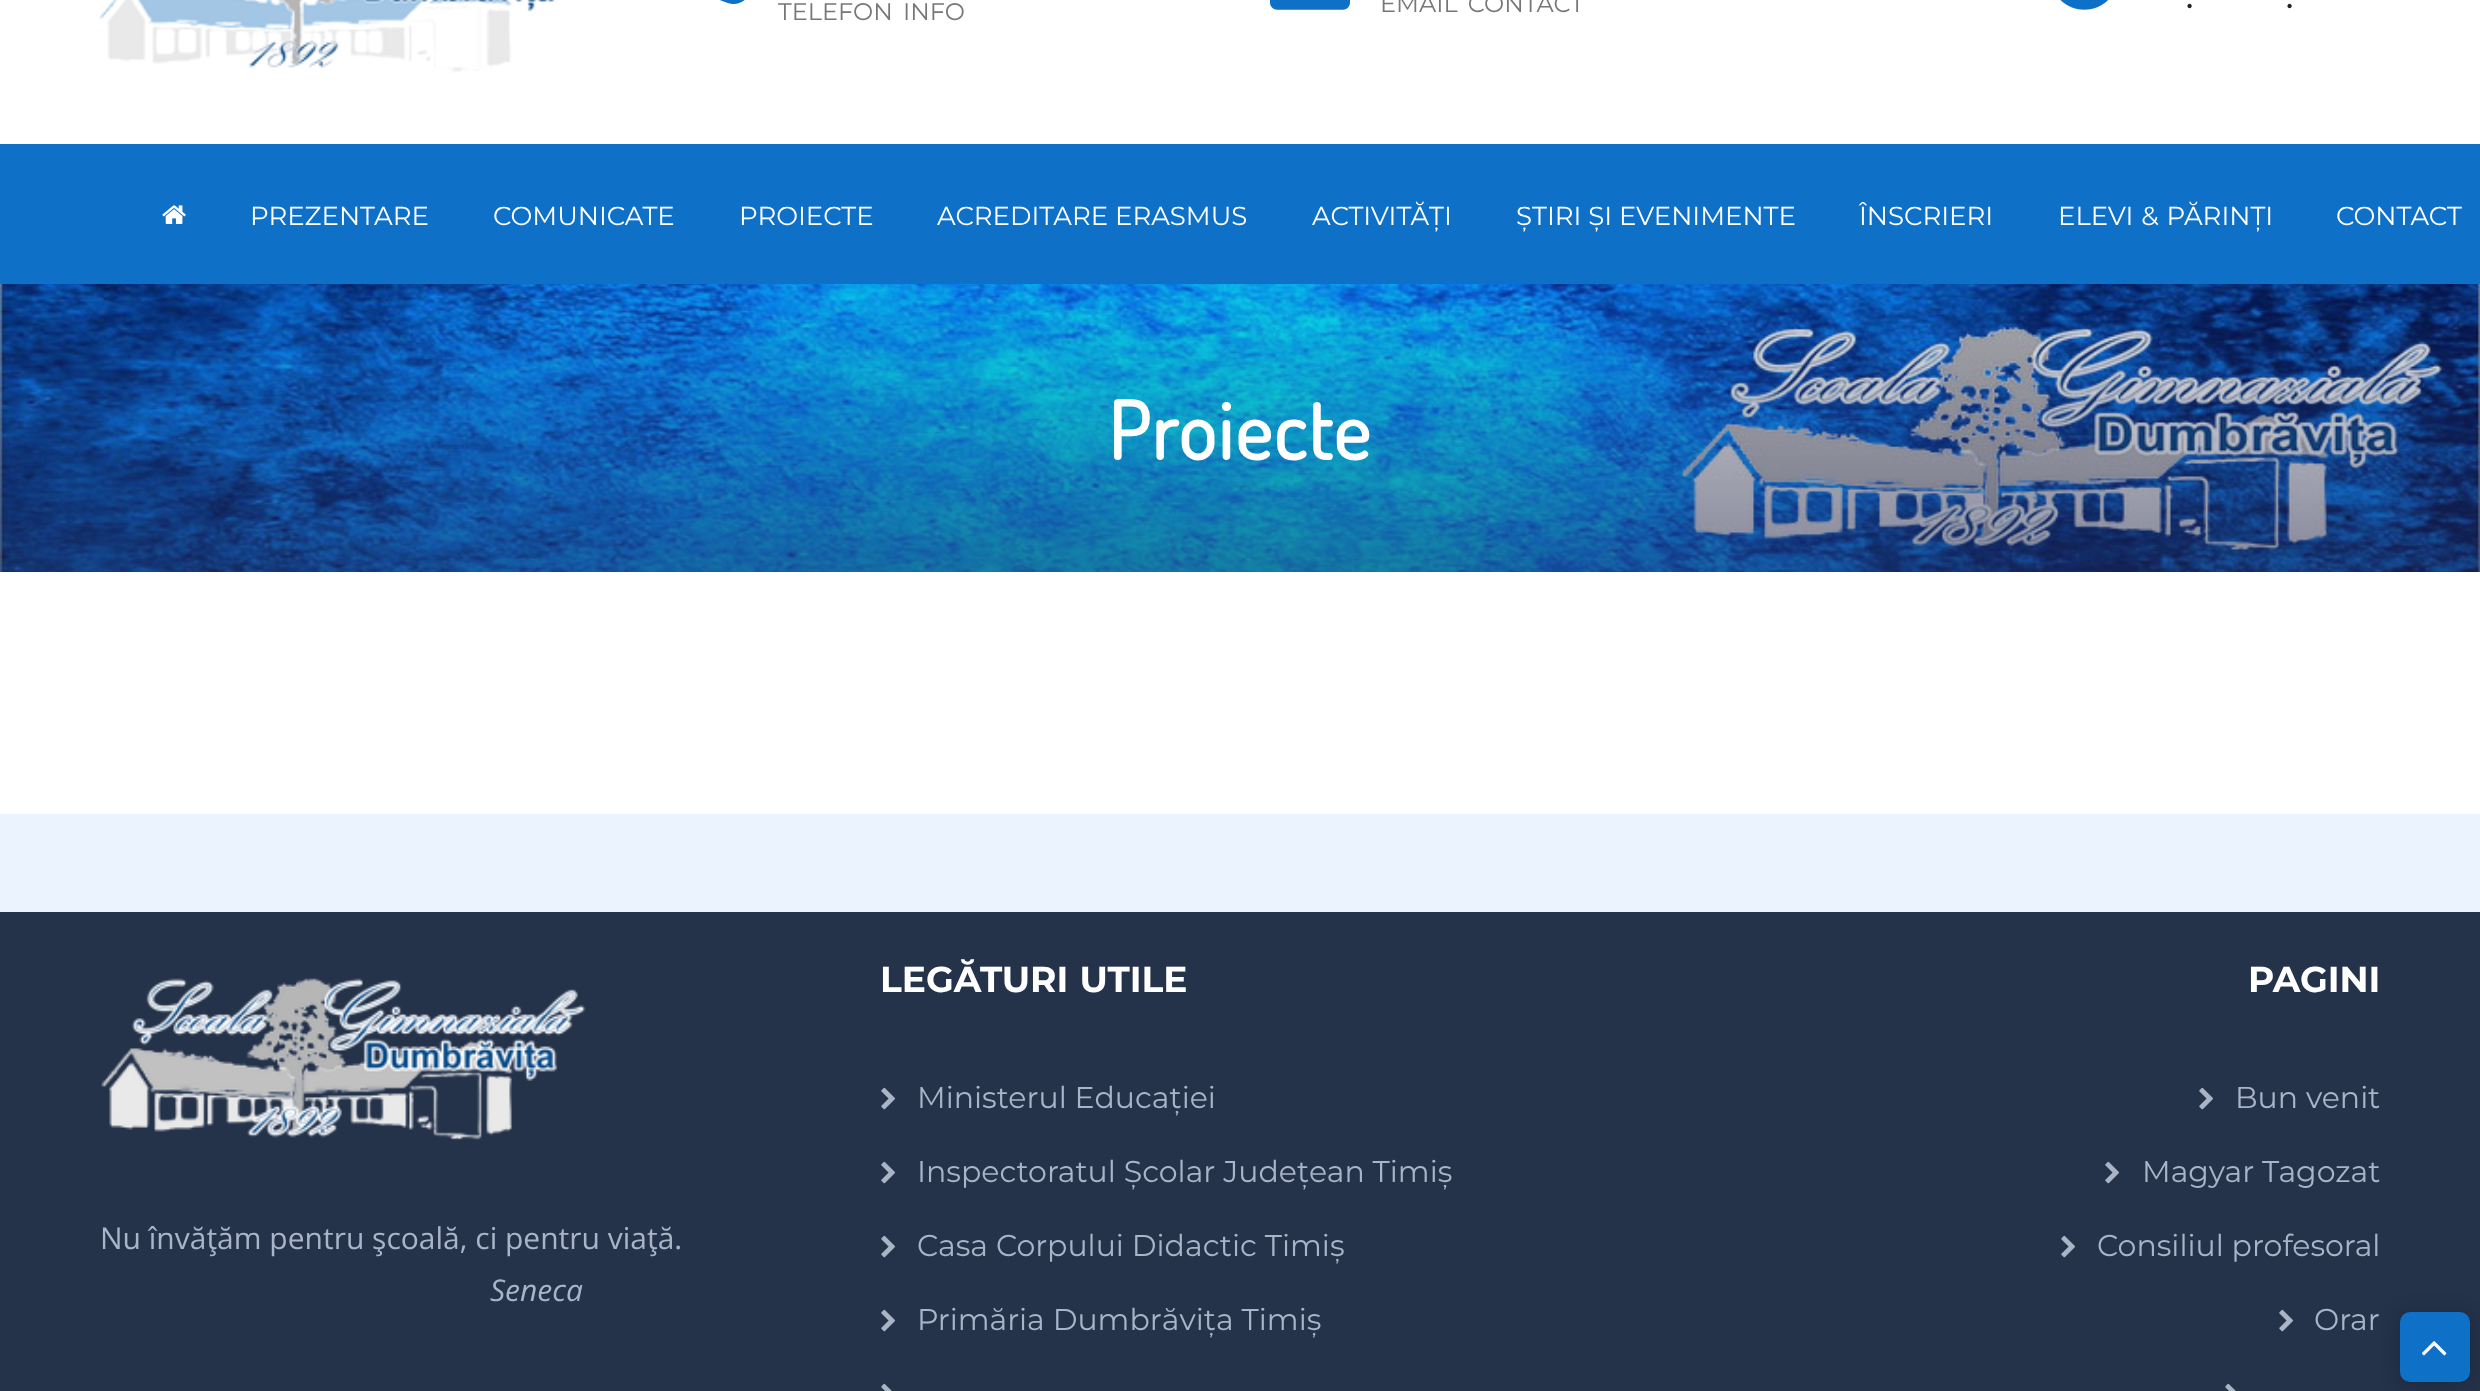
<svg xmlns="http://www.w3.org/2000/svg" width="2480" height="1391">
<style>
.a{font:24px Montserrat;fill:#777}
.b{font:bold 36px Dosis;fill:#202020}
.c{font:26px Montserrat;fill:#fff}
.d{font:bold 80px Dosis;letter-spacing:2px;fill:#fff}
.e{font:30px Open Sans;fill:#a9b4c7}
.f{font:italic 30px Open Sans;fill:#a9b4c7}
.g{font:bold 36px Montserrat;fill:#fff}
.h{font:30px Montserrat;fill:#a9b4c7}
</style>
<rect width="100%" height="100%" fill="#fff"/>
<image href="1.png" x="100" y="0" width="456" height="73"/>
<image href="2.png" x="720" y="0" width="25" height="4"/>
<image href="3.png" x="1270" y="0" width="80" height="10"/>
<image href="4.png" x="2060" y="0" width="48" height="10"/>
<path fill="#0e70c7" d="M0 144h2480v140H0z"/>
<image href="5.png" x="162" y="205" width="24" height="19"/>
<image href="6.png" x="0" y="284" width="2480" height="288"/>
<path fill="#eaf3ff" d="M0 814h2480v98H0z"/>
<path fill="#24324a" d="M0 912h2480v479H0z"/>
<image href="7.png" x="101" y="978" width="485" height="162"/>
<image href="8.png" x="881" y="1087" width="14" height="23"/>
<image href="8.png" x="881" y="1161" width="14" height="23"/>
<image href="8.png" x="881" y="1235" width="14" height="23"/>
<image href="8.png" x="881" y="1309" width="14" height="23"/>
<image href="9.png" x="881" y="1383" width="11" height="8"/>
<image href="8.png" x="2199" y="1087" width="14" height="23"/>
<image href="8.png" x="2105" y="1161" width="14" height="23"/>
<image href="8.png" x="2061" y="1235" width="14" height="23"/>
<image href="8.png" x="2279" y="1309" width="14" height="23"/>
<image href="9.png" x="2225" y="1383" width="11" height="8"/>
<rect fill="#00000033" filter="blur(10px)" x="2400" y="1314" width="70" height="70" rx="10"/>
<rect fill="#0e70c7" x="2400" y="1312" width="70" height="70" rx="10"/>
<image href="10.png" x="2421" y="1341" width="26" height="15"/>
<text class="a" x="778" y="20" word-spacing="4">TELEFON INFO</text>
<text class="a" x="1380" y="12" word-spacing="4">EMAIL CONTACT</text>
<text class="b" x="2186" y="8">.</text>
<text class="b" x="2286" y="8">.</text>
<text class="c" x="250" y="225">PREZENTARE</text>
<text class="c" x="493" y="225">COMUNICATE</text>
<text class="c" x="739" y="225">PROIECTE</text>
<text class="c" x="937" y="225">ACREDITARE ERASMUS</text>
<text class="c" x="1312" y="225">ACTIVITĂȚI</text>
<text class="c" x="1516" y="225">ȘTIRI ȘI EVENIMENTE</text>
<text class="c" x="1859" y="225">ÎNSCRIERI</text>
<text class="c" x="2058" y="225" word-spacing="1">ELEVI &amp; PĂRINȚI</text>
<text class="c" x="2336" y="225">CONTACT</text>
<text class="d" x="1108" y="460">Proiecte</text>
<text class="e" x="100" y="1249">Nu învăţăm pentru şcoală, ci pentru viaţă.</text>
<text class="f" x="490" y="1301">Seneca</text>
<text class="g" x="880" y="992" word-spacing="1">LEGĂTURI UTILE</text>
<text class="h" x="917" y="1108">Ministerul Educației</text>
<text class="h" x="917" y="1182">Inspectoratul Școlar Județean Timiș</text>
<text class="h" x="917" y="1256">Casa Corpului Didactic Timiș</text>
<text class="h" x="917" y="1330">Primăria Dumbrăvița Timiș</text>
<text class="g" x="2248" y="992">PAGINI</text>
<text class="h" x="2235" y="1108">Bun venit</text>
<text class="h" x="2142" y="1182">Magyar Tagozat</text>
<text class="h" x="2097" y="1256">Consiliul profesoral</text>
<text class="h" x="2314" y="1330">Orar</text>
</svg>
